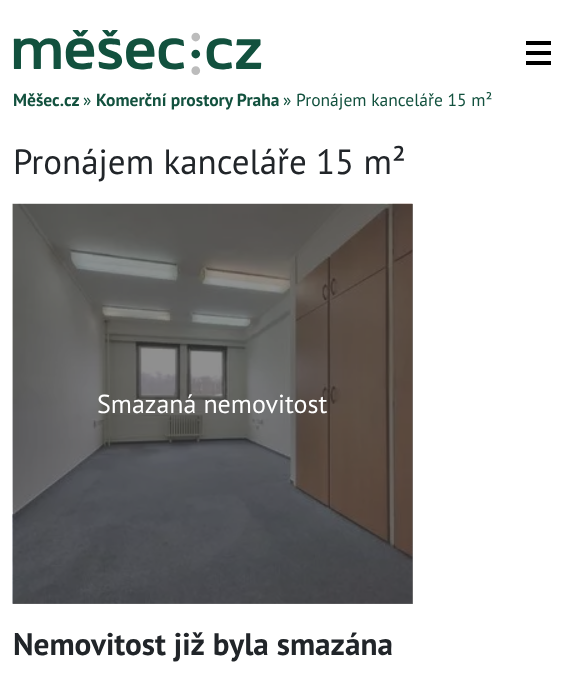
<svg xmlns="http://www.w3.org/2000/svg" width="579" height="673">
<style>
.a{font:bold 17.5px PT Sans;fill:#12513e}
.b{font:17.5px PT Sans;fill:#12513e}
.c{font:35px PT Sans;fill:#212529}
.d{font:26px PT Sans;fill:#fff}
.e{font:bold 31.25px PT Sans;fill:#212529}
</style>
<rect width="100%" height="100%" fill="#fff"/>
<path fill="#8f8f8f" d="M13 204h400v400H13z"/>
<image href="1.png" x="13" y="30" width="249" height="45"/>
<path fill="#000" d="M526 51h25v4H526z"/>
<path fill="#000" d="M526 41h25v4H526z"/>
<path fill="#000" d="M526 61h25v4H526z"/>
<image href="2.png" x="12" y="203" width="401" height="401"/>
<text class="a" x="13" y="106">Měšec.cz</text>
<text class="b" x="83" y="106">»</text>
<text class="a" x="96" y="106">Komerční prostory Praha</text>
<text class="b" x="283" y="106">» Pronájem kanceláře 15 m²</text>
<text class="c" x="13" y="174">Pronájem kanceláře 15 m²</text>
<text class="d" x="97" y="413">Smazaná nemovitost</text>
<text class="e" x="13" y="655">Nemovitost již byla smazána</text>
</svg>
